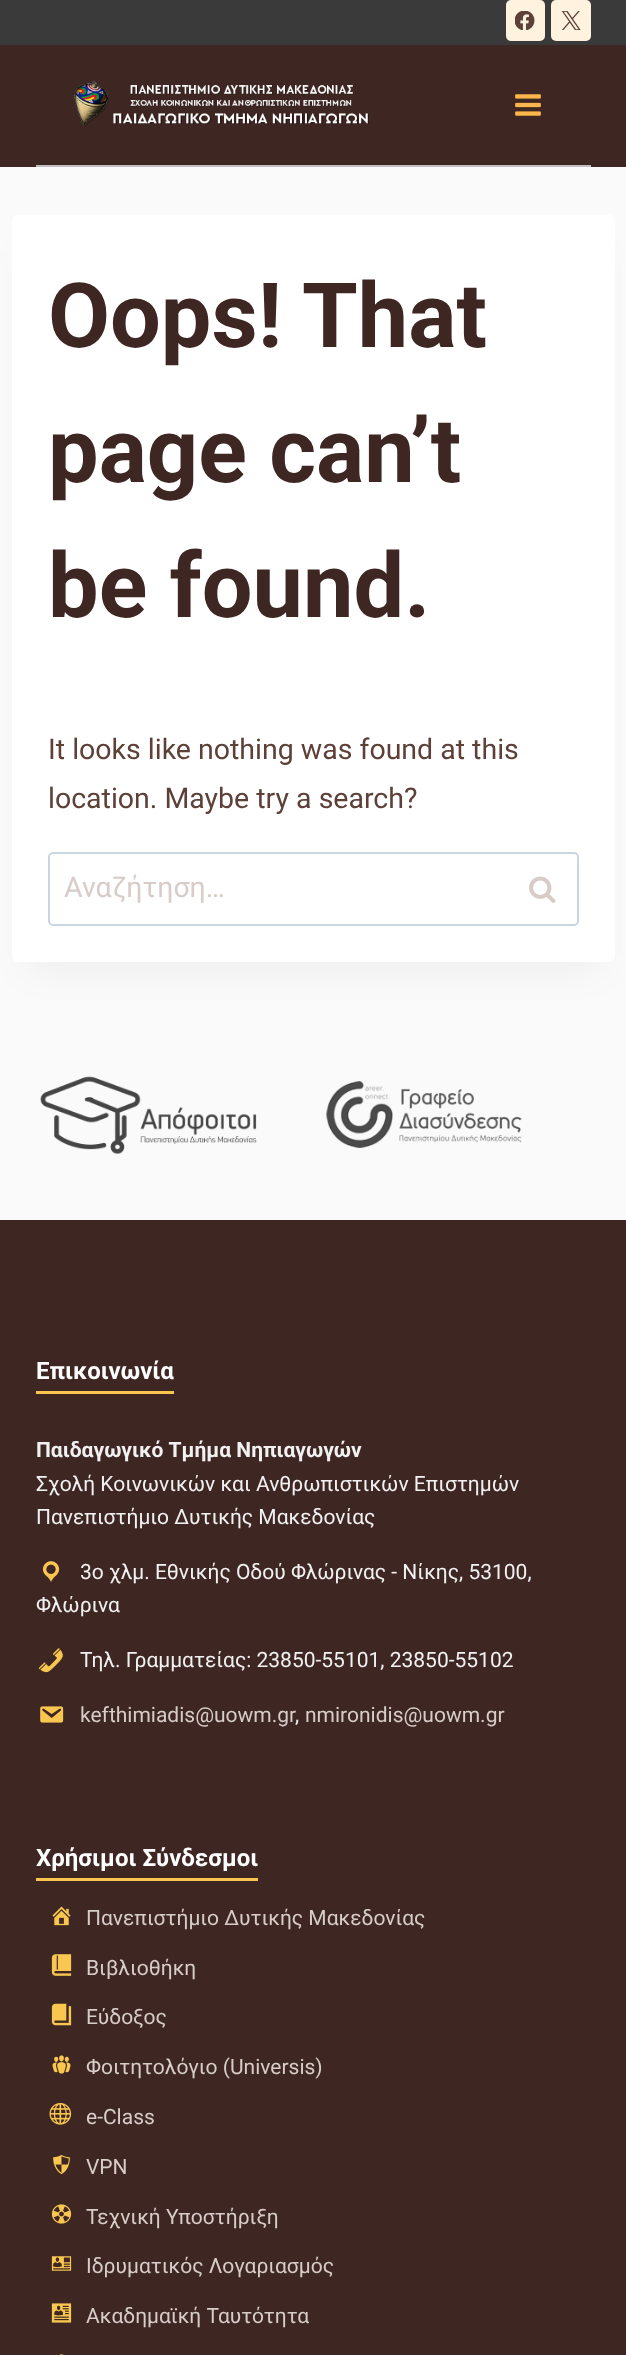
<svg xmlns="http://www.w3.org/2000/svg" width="626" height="2355">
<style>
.a{font:bold 90px Roboto;fill:#3e2723}
.b{font:28.5px Roboto;fill:#5d4037}
.c{font:28.5px Roboto;fill:#d7ccc8}
.d{font:bold 24px Roboto;fill:#fff}
.e{font:bold 21px Roboto;fill:#f1f1f1}
.f{font:21px Roboto;fill:#f1f1f1}
.g{font:21px Roboto;fill:#d7ccc8}
</style>
<rect width="100%" height="100%" fill="#fafafa"/>
<path fill="#3e2723" d="M0 45h626v122H0z"/>
<path fill="#3a3a3a" d="M0 0h626v45H0z"/>
<rect fill="#fff3e0" x="506" width="39" height="41" rx="5"/>
<image href="1.png" x="515" y="11" width="20" height="19"/>
<rect fill="#fff3e0" x="551" width="40" height="41" rx="5"/>
<image href="2.png" x="561" y="11" width="20" height="19"/>
<path fill="#c1bfc2" d="M36 165h555v2H36z"/>
<image href="3.png" x="73" y="81" width="296" height="45"/>
<image href="4.png" x="515" y="94" width="26" height="22"/>
<path fill="#0000000d" filter="blur(19px)" d="M27 252h573v717H27z"/>
<rect fill="#fff" x="12" y="215" width="603" height="747" rx="6"/>
<rect fill="none" stroke="#cbd5e0" stroke-width="2" x="49" y="853" width="529" height="72" rx="4"/>
<image href="5.png" x="529" y="876" width="27" height="27"/>
<image href="6.png" x="40" y="1076" width="217" height="78"/>
<image href="7.png" x="326" y="1081" width="196" height="67"/>
<path fill="#3e2723" d="M0 1220h626v1135H0z"/>
<path fill="#f9c74f" d="M36 1391h138v3H36z"/>
<image href="8.png" x="42" y="1561" width="18" height="21"/>
<image href="9.png" x="38" y="1648" width="25" height="25"/>
<image href="10.png" x="40" y="1706" width="24" height="17"/>
<path fill="#f9c74f" d="M36 1878h222v3H36z"/>
<image href="11.png" x="52" y="1906" width="19" height="20"/>
<image href="12.png" x="51" y="1954" width="21" height="22"/>
<image href="13.png" x="51" y="2003" width="21" height="23"/>
<image href="14.png" x="52" y="2055" width="19" height="19"/>
<image href="15.png" x="49" y="2103" width="23" height="22"/>
<image href="16.png" x="53" y="2155" width="17" height="19"/>
<image href="17.png" x="51" y="2204" width="21" height="20"/>
<image href="18.png" x="51" y="2256" width="21" height="15"/>
<image href="19.png" x="51" y="2303" width="21" height="20"/>
<image href="20.png" x="59" y="2354" width="5" height="1"/>
<text class="a" x="48" y="347">Oops! That</text>
<text class="a" x="48" y="482">page can’t</text>
<text class="a" x="48" y="617">be found.</text>
<text class="b" x="48" y="759">It looks like nothing was found at this</text>
<text class="b" x="48" y="808">location. Maybe try a search?</text>
<text class="c" x="64" y="897">Αναζήτηση…</text>
<text class="d" x="36" y="1379">Επικοινωνία</text>
<text class="e" x="36" y="1457">Παιδαγωγικό Τμήμα Νηπιαγωγών</text>
<text class="f" x="36" y="1491">Σχολή Κοινωνικών και Ανθρωπιστικών Επιστημών</text>
<text class="f" x="36" y="1524">Πανεπιστήμιο Δυτικής Μακεδονίας</text>
<text class="f" x="80" y="1579">3ο χλμ. Εθνικής Οδού Φλώρινας - Νίκης, 53100,</text>
<text class="f" x="36" y="1612">Φλώρινα</text>
<text class="f" x="80" y="1667">Τηλ. Γραμματείας: 23850-55101, 23850-55102</text>
<text class="g" x="80" y="1722">kefthimiadis@uowm.gr</text>
<text class="g" x="305" y="1722">nmironidis@uowm.gr</text>
<text class="f" x="295" y="1722">,</text>
<text class="d" x="36" y="1866">Χρήσιμοι Σύνδεσμοι</text>
<text class="g" x="86" y="1925">Πανεπιστήμιο Δυτικής Μακεδονίας</text>
<text class="g" x="86" y="1975">Βιβλιοθήκη</text>
<text class="g" x="86" y="2024">Εύδοξος</text>
<text class="g" x="86" y="2074">Φοιτητολόγιο (Universis)</text>
<text class="g" x="86" y="2124">e-Class</text>
<text class="g" x="86" y="2174">VPN</text>
<text class="g" x="86" y="2224">Τεχνική Υποστήριξη</text>
<text class="g" x="86" y="2273">Ιδρυματικός Λογαριασμός</text>
<text class="g" x="86" y="2323">Ακαδημαϊκή Ταυτότητα</text>
</svg>
